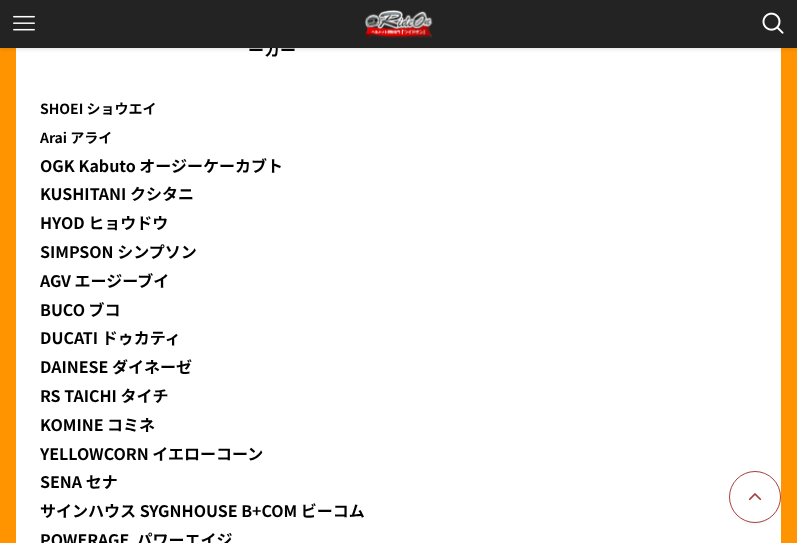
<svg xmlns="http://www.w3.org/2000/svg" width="797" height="543">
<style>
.a{font:bold 16px Noto Sans JP;fill:#000}
.b{font:bold 14px Noto Sans JP;fill:#000}
</style>
<rect width="100%" height="100%" fill="#ff9300"/>
<path fill="#fff" d="M16 48h765v495H16z"/>
<path fill="#0000001f" filter="blur(2px)" d="M0 1h797v48H0z"/>
<rect fill="#4040401a" filter="blur(2px)" x="733" y="479" width="44" height="44" rx="22"/>
<circle fill="#fff" stroke="#a64040" cx="755" cy="497" r="25.5"/>
<image href="4.png" x="748" y="493" width="14" height="8"/>
<text class="a" x="248" y="56">ーカー</text>
<path fill="#232323" d="M0 0h797v48H0z"/>
<image href="1.png" x="13" y="15" width="22" height="16"/>
<image href="3.png" x="762" y="12" width="22" height="22"/>
<image href="2.png" x="365" y="10" width="68" height="28"/>
<text class="b" x="40" y="114">SHOEI ショウエイ</text>
<text class="b" x="40" y="143">Arai アライ</text>
<text class="a" x="40" y="172">OGK Kabuto オージーケーカブト</text>
<text class="a" x="40" y="200">KUSHITANI クシタニ</text>
<text class="a" x="40" y="229">HYOD ヒョウドウ</text>
<text class="a" x="40" y="258">SIMPSON シンプソン</text>
<text class="a" x="40" y="287">AGV エージーブイ</text>
<text class="a" x="40" y="316">BUCO ブコ</text>
<text class="a" x="40" y="344">DUCATI ドゥカティ</text>
<text class="a" x="40" y="373">DAINESE ダイネーゼ</text>
<text class="a" x="40" y="402">RS TAICHI タイチ</text>
<text class="a" x="40" y="431">KOMINE コミネ</text>
<text class="a" x="40" y="460">YELLOWCORN イエローコーン</text>
<text class="a" x="40" y="488">SENA セナ</text>
<text class="a" x="40" y="517">サインハウス SYGNHOUSE B+COM ビーコム</text>
<text class="a" xml:space="preserve" x="40" y="546">POWERAGE  パワーエイジ</text>
</svg>
